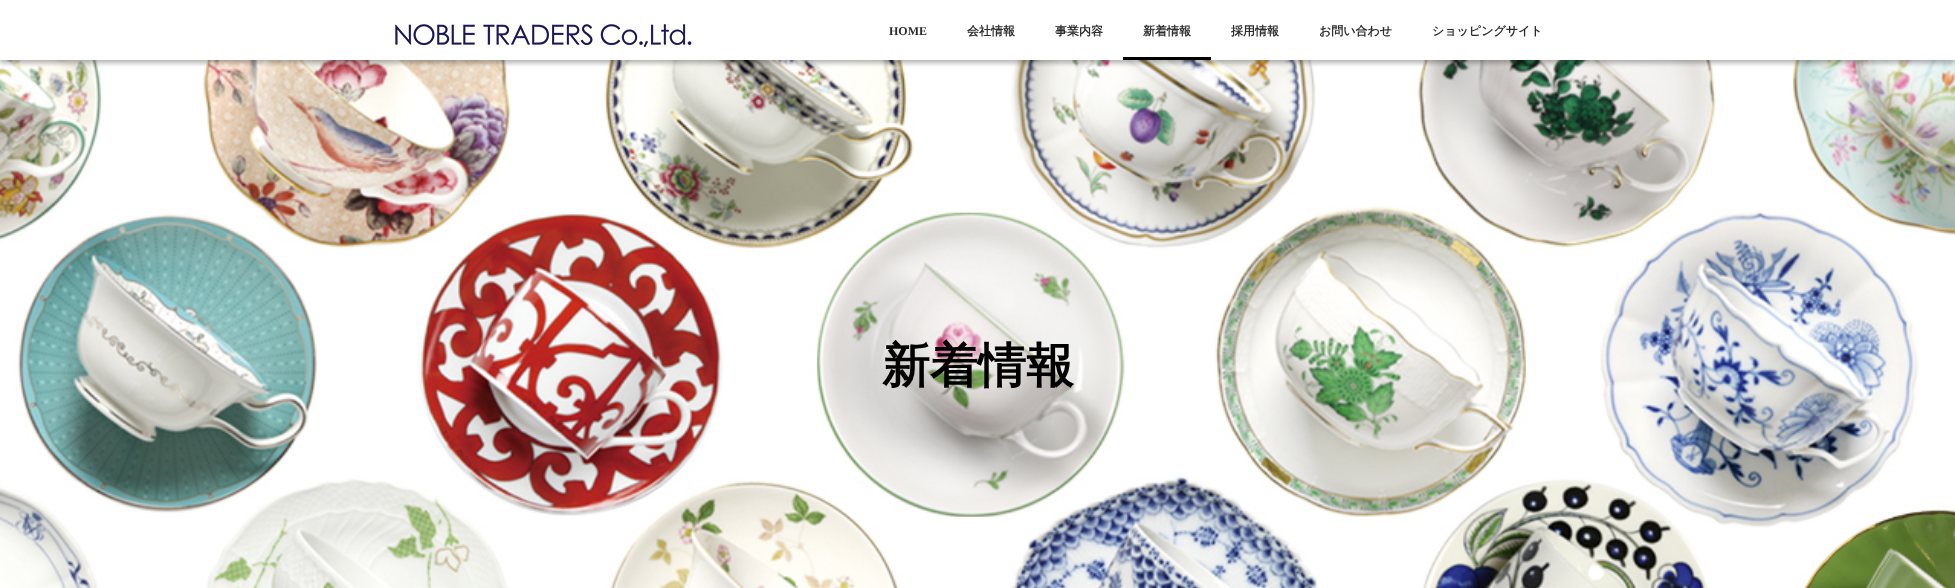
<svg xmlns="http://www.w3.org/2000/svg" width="1955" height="588">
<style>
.a{font:bold 12px Liberation Serif;fill:#2c2c2c}
.b{font:bold 12px WenQuanYi Zen Hei;fill:#2c2c2c}
.c{font:bold 48px WenQuanYi Zen Hei;fill:#000}
</style>
<defs>
<clipPath id="clip1"><path d="M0 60h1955v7H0z"/></clipPath>
</defs>
<rect width="100%" height="100%" fill="#fff"/>
<image href="2.png" x="0" y="60" width="1955" height="528"/>
<g clip-path="url(#clip1)">
<path fill="#0000004d" filter="blur(2.5px)" d="M0 3h1955v60H0z"/>
</g>
<image href="1.png" x="393" y="24" width="300" height="24"/>
<path fill="#000" d="M1123 57h88v3H1123z"/>
<text class="a" x="889" y="35">HOME</text>
<text class="b" x="967" y="35">会社情報</text>
<text class="b" x="1055" y="35">事業内容</text>
<text class="b" x="1143" y="35">新着情報</text>
<text class="b" x="1231" y="35">採用情報</text>
<text class="b" x="1319" y="35">お問い合わせ</text>
<text class="b" x="1432" y="35">ショッピングサイト</text>
<text class="c" x="882" y="382">新着情報</text>
</svg>
